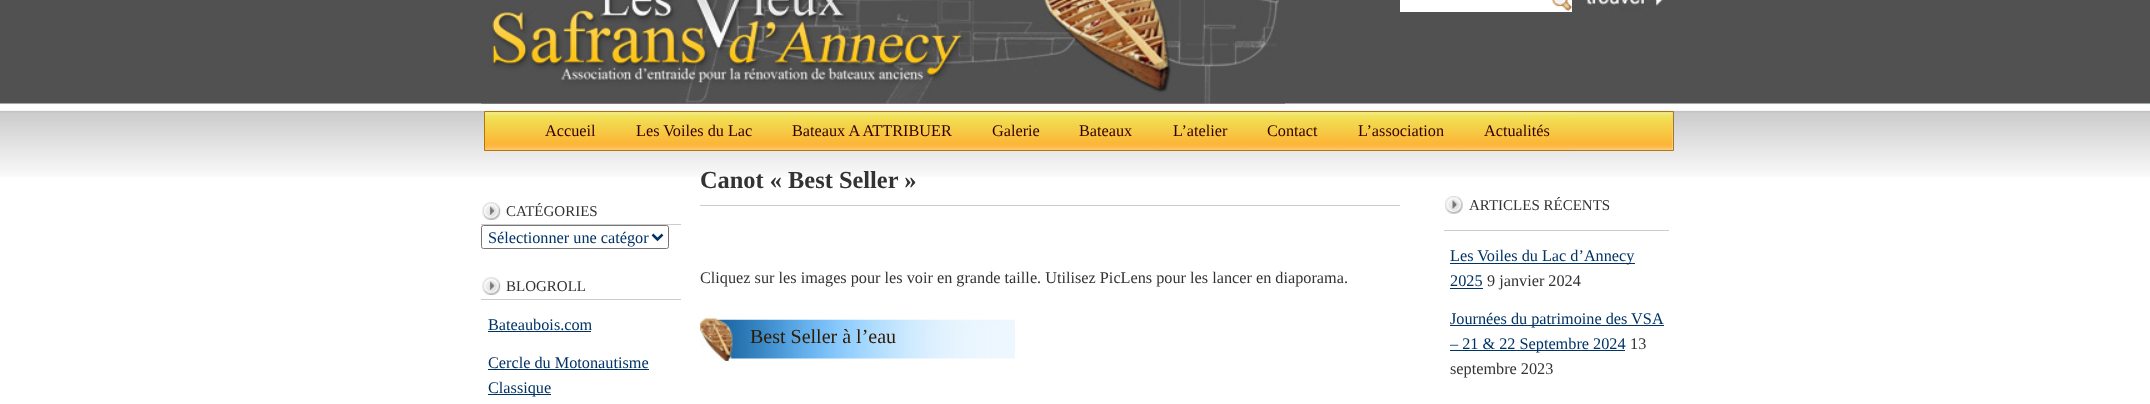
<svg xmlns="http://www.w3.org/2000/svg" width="2150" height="404">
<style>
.a{font:16.25px Liberation Serif;fill:#300}
.b{font:15px Liberation Serif;fill:#333}
.c{font:16.25px Liberation Serif;fill:#036}
.d{font:bold 24.4px Liberation Serif;fill:#333}
.e{font:16.25px Liberation Serif;fill:#333}
.f{font:20px Liberation Serif;fill:#2f1901}
</style>
<rect width="100%" height="100%" fill="#fff"/>
<image href="1.png" x="0" y="0" width="2150" height="177"/>
<image href="2.png" x="481" y="0" width="804" height="104"/>
<path fill="#fff" d="M1400 0h172v12H1400z"/>
<image href="3.png" x="1552" y="0" width="20" height="11"/>
<image href="4.png" x="1584" y="0" width="79" height="10"/>
<path fill="none" stroke="#b1770b" d="M484.5 111.5h1189v39H484.5z"/>
<image href="5.png" x="485" y="112" width="1188" height="38"/>
<image href="6.png" x="485" y="112" width="40" height="38"/>
<image href="7.png" x="525" y="112" width="90" height="38"/>
<image href="8.png" x="615" y="112" width="157" height="38"/>
<image href="9.png" x="771" y="112" width="201" height="38"/>
<image href="10.png" x="971" y="112" width="89" height="38"/>
<image href="11.png" x="1060" y="112" width="93" height="38"/>
<image href="12.png" x="1152" y="112" width="96" height="38"/>
<image href="13.png" x="1247" y="112" width="91" height="38"/>
<image href="14.png" x="1337" y="112" width="127" height="38"/>
<image href="15.png" x="1464" y="112" width="106" height="38"/>
<image href="16.png" x="482" y="202" width="19" height="18"/>
<path fill="#ccc" d="M481 224h200v1H481z"/>
<rect fill="none" stroke="#767676" x="481.5" y="225.5" width="187" height="23" rx="2"/>
<path fill="none" stroke="#036" stroke-width="2.5" d="M652.5 234.5l5 5l5-5"/>
<image href="16.png" x="482" y="277" width="19" height="18"/>
<path fill="#ccc" d="M481 299h200v1H481z"/>
<path fill="#036" d="M488 331h103v1H488z"/>
<path fill="#036" d="M488 369h161v1H488z"/>
<path fill="#036" d="M488 394h63v1H488z"/>
<path fill="#ccc" d="M700 205h700v1H700z"/>
<image href="17.png" x="700" y="318" width="315" height="43"/>
<image href="18.png" x="1445" y="196" width="18" height="18"/>
<path fill="#ccc" d="M1444 230h225v1H1444z"/>
<path fill="#036" d="M1450 263h185v1H1450z"/>
<path fill="#036" d="M1450 288h33v1H1450z"/>
<path fill="#036" d="M1450 325h214v1H1450z"/>
<path fill="#036" d="M1450 350h175v1H1450z"/>
<text class="a" x="545" y="136">Accueil</text>
<text class="a" x="636" y="136">Les Voiles du Lac</text>
<text class="a" x="792" y="136">Bateaux A ATTRIBUER</text>
<text class="a" x="992" y="136">Galerie</text>
<text class="a" x="1079" y="136">Bateaux</text>
<text class="a" x="1173" y="136">L’atelier</text>
<text class="a" x="1267" y="136">Contact</text>
<text class="a" x="1358" y="136">L’association</text>
<text class="a" x="1484" y="136">Actualités</text>
<text class="b" x="506" y="216">CATÉGORIES</text>
<text class="c" x="488" y="243">Sélectionner une catégor</text>
<text class="b" x="506" y="291">BLOGROLL</text>
<text class="c" x="488" y="330">Bateaubois.com</text>
<text class="c" x="488" y="368">Cercle du Motonautisme</text>
<text class="c" x="488" y="393">Classique</text>
<text class="d" x="700" y="188">Canot « Best Seller »</text>
<text class="e" x="700" y="283">Cliquez sur les images pour les voir en grande taille. Utilisez PicLens pour les lancer en diaporama.</text>
<text class="f" x="750" y="343">Best Seller à l’eau</text>
<text class="b" x="1469" y="210">ARTICLES RÉCENTS</text>
<text class="c" x="1450" y="261">Les Voiles du Lac d’Annecy</text>
<text class="c" x="1450" y="286">2025</text>
<text class="e" x="1487" y="286">9 janvier 2024</text>
<text class="c" x="1450" y="324">Journées du patrimoine des VSA</text>
<text class="c" x="1450" y="349">– 21 &amp; 22 Septembre 2024</text>
<text class="e" x="1630" y="349">13</text>
<text class="e" x="1450" y="374">septembre 2023</text>
</svg>
